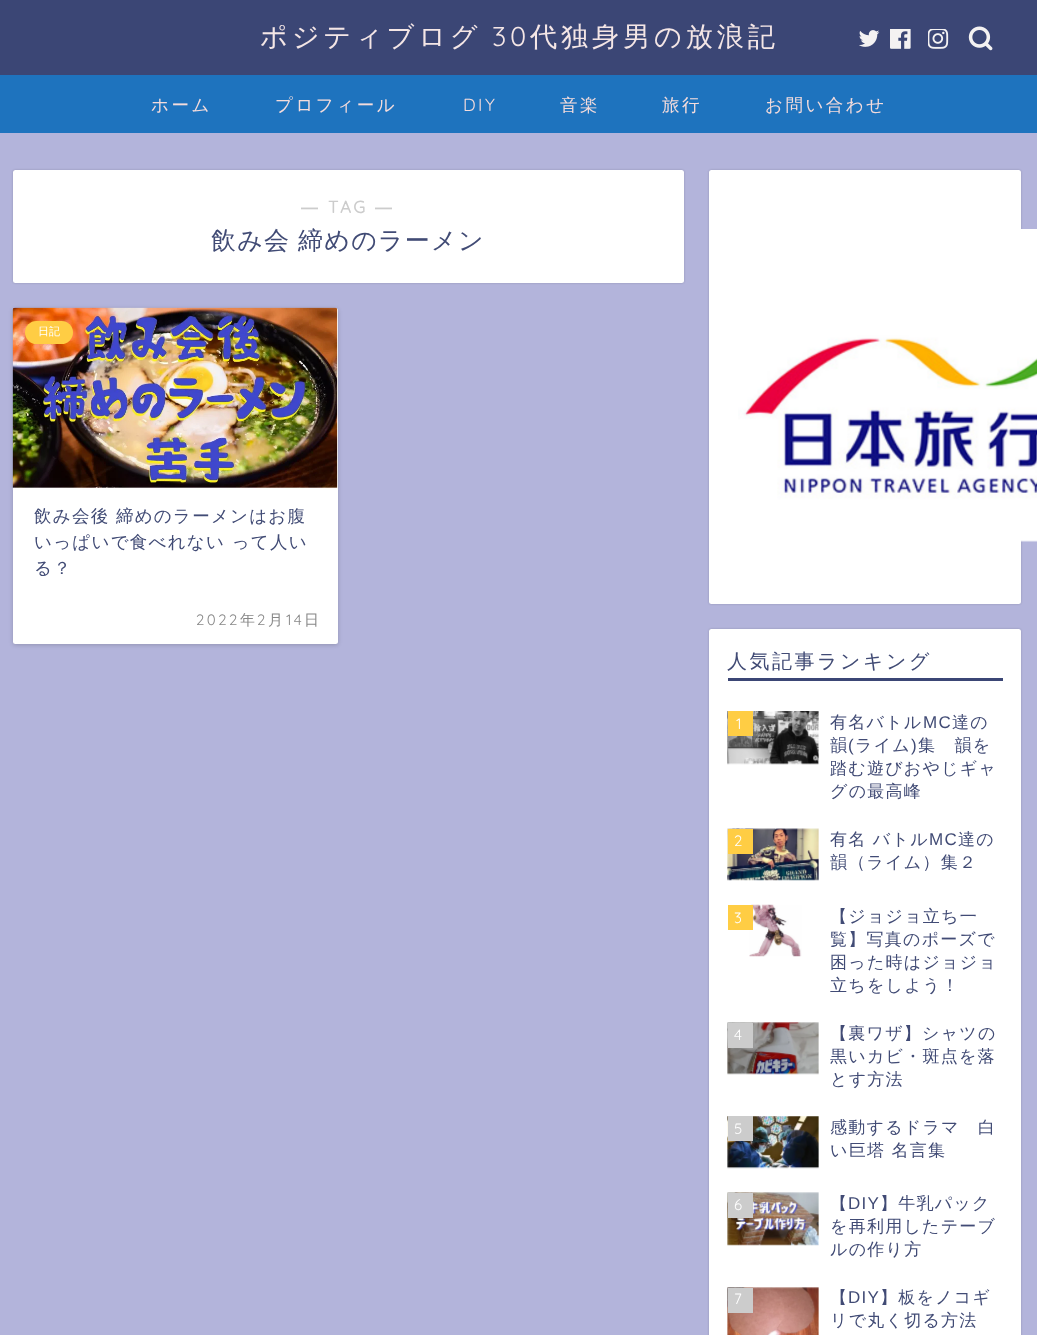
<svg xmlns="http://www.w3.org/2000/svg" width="1037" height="1335">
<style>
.a{font:500 27.25px WenQuanYi Zen Hei;letter-spacing:3.75px;fill:#f4e6e6}
.b{font:300 27.25px Quicksand;letter-spacing:3.75px;fill:#f4e6e6}
.c{font:500 17.5px WenQuanYi Zen Hei;letter-spacing:2.5px;fill:#f4dcdc}
.d{font:300 17.5px Quicksand;letter-spacing:2.5px;fill:#f4dcdc}
.e{font:bold 17px Liberation Sans;letter-spacing:2.5px;fill:#ccc}
.f{font:bold 17px Quicksand;letter-spacing:2.5px;fill:#ccc}
.g{font:500 25px WenQuanYi Zen Hei;letter-spacing:1.25px;fill:#414b75}
.h{font:500 11px WenQuanYi Zen Hei;fill:#fff}
.i{font:500 17.5px WenQuanYi Zen Hei;letter-spacing:1.25px;fill:#414b75}
.j{font:300 15px Quicksand;letter-spacing:2.5px;fill:#888}
.k{font:500 15px WenQuanYi Zen Hei;letter-spacing:2.5px;fill:#888}
.l{font:500 20px WenQuanYi Zen Hei;letter-spacing:2.5px;fill:#414b75}
.m{font:300 15px Quicksand;letter-spacing:2.5px;fill:#fff}
.n{font:500 17px WenQuanYi Zen Hei;letter-spacing:1.25px;fill:#414b75}
.o{font:17px Liberation Sans;letter-spacing:1.25px;fill:#414b75}
</style>
<rect width="100%" height="100%" fill="#b3b4db"/>
<path fill="#3b4675" d="M0 0h1037v75H0z"/>
<image href="1.png" x="859" y="30" width="21" height="17"/>
<image href="2.png" x="890" y="29" width="21" height="20"/>
<image href="3.png" x="928" y="29" width="21" height="20"/>
<image href="4.png" x="968" y="26" width="25" height="25"/>
<path fill="#1e73be" d="M0 75h1037v58H0z"/>
<rect fill="#0000002e" filter="blur(1px)" x="13" y="170" width="671" height="113" rx="2.5"/>
<rect fill="#fff" x="13" y="170" width="671" height="113" rx="2.5"/>
<rect fill="#0000002e" filter="blur(2px)" x="13" y="309" width="325" height="336" rx="2.5"/>
<rect fill="#fff" x="13" y="308" width="325" height="336" rx="2.5"/>
<image href="5.png" x="12" y="307" width="326" height="183"/>
<rect fill="#ffcd44" x="25" y="321" width="48" height="23" rx="11.5"/>
<rect fill="#0000002e" filter="blur(1px)" x="709" y="170" width="312" height="434" rx="2.5"/>
<rect fill="#fff" x="709" y="170" width="312" height="434" rx="2.5"/>
<image href="6.png" x="738" y="229" width="299" height="313"/>
<rect fill="#0000002e" filter="blur(1px)" x="709" y="629" width="312" height="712" rx="2.5"/>
<rect fill="#fff" x="709" y="629" width="312" height="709" rx="2.5"/>
<path fill="#3b4675" d="M728 678h275v3H728z"/>
<image href="7.png" x="727" y="711" width="92" height="54"/>
<path fill="#ffcd44" d="M728 711h25v25H728z"/>
<image href="8.png" x="727" y="828" width="92" height="53"/>
<path fill="#ffcd44" d="M728 829h25v25H728z"/>
<image href="9.png" x="749" y="904" width="53" height="53"/>
<path fill="#ffcd44" d="M728 905h25v25H728z"/>
<image href="10.png" x="727" y="1022" width="92" height="53"/>
<path fill="#ccc" d="M728 1023h25v25H728z"/>
<image href="11.png" x="727" y="1116" width="92" height="53"/>
<path fill="#ccc" d="M728 1116h25v25H728z"/>
<image href="12.png" x="727" y="1192" width="92" height="54"/>
<path fill="#ccc" d="M728 1193h25v25H728z"/>
<image href="13.png" x="727" y="1287" width="92" height="48"/>
<path fill="#ccc" d="M728 1288h25v25H728z"/>
<text class="a" x="260" y="46">ポジティブログ</text>
<text class="b" x="492" y="46">30</text>
<text class="a" x="530" y="46">代独身男の放浪記</text>
<text class="c" x="151" y="111">ホーム</text>
<text class="c" x="275" y="111">プロフィール</text>
<text class="d" x="463" y="111">DIY</text>
<text class="c" x="560" y="111">音楽</text>
<text class="c" x="662" y="111">旅行</text>
<text class="c" x="765" y="111">お問い合わせ</text>
<text class="e" x="301" y="213">―</text>
<text class="f" x="328" y="213">TAG</text>
<text class="e" x="375" y="213">―</text>
<text class="g" x="211" y="249" word-spacing="-1">飲み会 締めのラーメン</text>
<text class="h" x="38" y="335">日記</text>
<text class="i" x="34" y="522">飲み会後 締めのラーメンはお腹</text>
<text class="i" x="34" y="548">いっぱいで食べれない って人い</text>
<text class="i" x="34" y="574">る？</text>
<text class="j" x="196" y="625">2022</text>
<text class="k" x="240" y="625">年</text>
<text class="j" x="257" y="625">2</text>
<text class="k" x="268" y="625">月</text>
<text class="j" x="286" y="625">14</text>
<text class="k" x="304" y="625">日</text>
<text class="l" x="727" y="668">人気記事ランキング</text>
<text class="m" x="736" y="729">1</text>
<text class="n" x="830" y="728">有名バトル</text>
<text class="o" x="923" y="728">MC</text>
<text class="n" x="952" y="728">達の</text>
<text class="n" x="830" y="751">韻</text>
<text class="o" x="848" y="751">(</text>
<text class="n" x="855" y="751">ライム</text>
<text class="o" x="911" y="751">)</text>
<text class="n" x="918" y="751">集　韻を</text>
<text class="n" x="830" y="774">踏む遊びおやじギャ</text>
<text class="n" x="830" y="797">グの最高峰</text>
<text class="m" x="734" y="846">2</text>
<text class="n" x="830" y="845">有名 バトル</text>
<text class="o" x="929" y="845">MC</text>
<text class="n" x="958" y="845">達の</text>
<text class="n" x="830" y="868">韻（ライム）集２</text>
<text class="m" x="734" y="923">3</text>
<text class="n" x="830" y="922">【ジョジョ立ち一</text>
<text class="n" x="830" y="945">覧】写真のポーズで</text>
<text class="n" x="830" y="968">困った時はジョジョ</text>
<text class="n" x="830" y="991">立ちをしよう！</text>
<text class="m" x="734" y="1040">4</text>
<text class="n" x="830" y="1039">【裏ワザ】シャツの</text>
<text class="n" x="830" y="1062">黒いカビ・斑点を落</text>
<text class="n" x="830" y="1085">とす方法</text>
<text class="m" x="734" y="1134">5</text>
<text class="n" x="830" y="1133">感動するドラマ　白</text>
<text class="n" x="830" y="1156">い巨塔 名言集</text>
<text class="m" x="734" y="1210">6</text>
<text class="n" x="830" y="1209">【</text>
<text class="o" x="848" y="1209">DIY</text>
<text class="n" x="880" y="1209">】牛乳パック</text>
<text class="n" x="830" y="1232">を再利用したテーブ</text>
<text class="n" x="830" y="1255">ルの作り方</text>
<text class="m" x="734" y="1304">7</text>
<text class="n" x="830" y="1303">【</text>
<text class="o" x="848" y="1303">DIY</text>
<text class="n" x="880" y="1303">】板をノコギ</text>
<text class="n" x="830" y="1326">リで丸く切る方法</text>
</svg>
